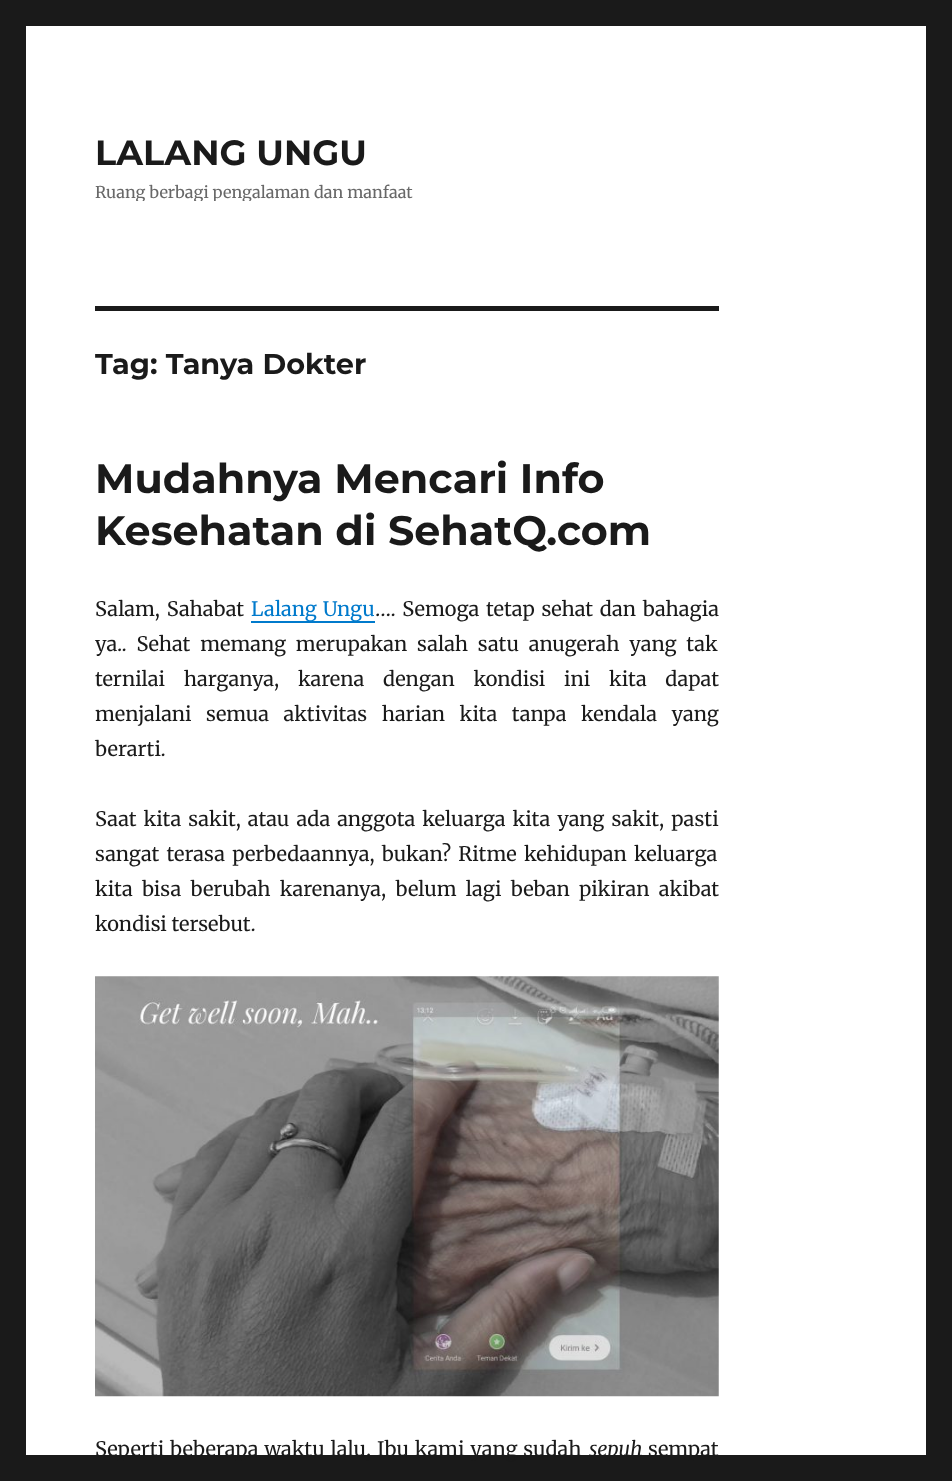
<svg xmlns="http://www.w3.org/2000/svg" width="952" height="1481">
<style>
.a{font:bold 35px Montserrat;fill:#1a1a1a}
.b{font:16.25px Merriweather;fill:#686868}
.c{font:bold 28.75px Montserrat;fill:#1a1a1a}
.d{font:bold 41.25px Montserrat;fill:#1a1a1a}
.e{font:20px Merriweather;fill:#1a1a1a}
.f{font:20px Merriweather;fill:#007acc}
.g{font:italic 20px Merriweather;fill:#1a1a1a}
</style>
<defs>
<clipPath id="clip1"><path d="M95 131h319v70H95z"/></clipPath>
</defs>
<rect width="100%" height="100%" fill="#1a1a1a"/>
<path fill="#fff" d="M26 26h900v1429H26z"/>
<path fill="#1a1a1a" d="M95 306h624v5H95z"/>
<path fill="#007acc" d="M251 598v25h124v-2h-124z"/>
<image href="1.png" x="95" y="976" width="624" height="421"/>
<text class="a" x="95" y="165">LALANG UNGU</text>
<g clip-path="url(#clip1)">
<text class="b" x="95" y="198">Ruang berbagi pengalaman dan manfaat</text>
</g>
<text class="c" x="95" y="374">Tag: Tanya Dokter</text>
<text class="d" x="95" y="493">Mudahnya Mencari Info</text>
<text class="d" x="95" y="545">Kesehatan di SehatQ.com</text>
<text class="e" x="95" y="616" word-spacing="2">Salam, Sahabat</text>
<text class="f" x="251" y="616" word-spacing="1">Lalang Ungu</text>
<text class="e" x="375" y="616" word-spacing="2">…. Semoga tetap sehat dan bahagia</text>
<text class="e" x="95" y="651" word-spacing="5">ya.. Sehat memang merupakan salah satu anugerah yang tak</text>
<text class="e" x="95" y="686" word-spacing="14">ternilai harganya, karena dengan kondisi ini kita dapat</text>
<text class="e" x="95" y="721" word-spacing="9.75">menjalani semua aktivitas harian kita tanpa kendala yang</text>
<text class="e" x="95" y="756">berarti.</text>
<text class="e" x="95" y="826" word-spacing="2.25">Saat kita sakit, atau ada anggota keluarga kita yang sakit, pasti</text>
<text class="e" x="95" y="861" word-spacing="2.5">sangat terasa perbedaannya, bukan? Ritme kehidupan keluarga</text>
<text class="e" x="95" y="896" word-spacing="4.5">kita bisa berubah karenanya, belum lagi beban pikiran akibat</text>
<text class="e" x="95" y="931">kondisi tersebut.</text>
<text class="e" x="95" y="1456" word-spacing="1">Seperti beberapa waktu lalu, Ibu kami yang sudah</text>
<text class="g" x="589" y="1456">sepuh</text>
<text class="e" x="648" y="1456">sempat</text>
</svg>
